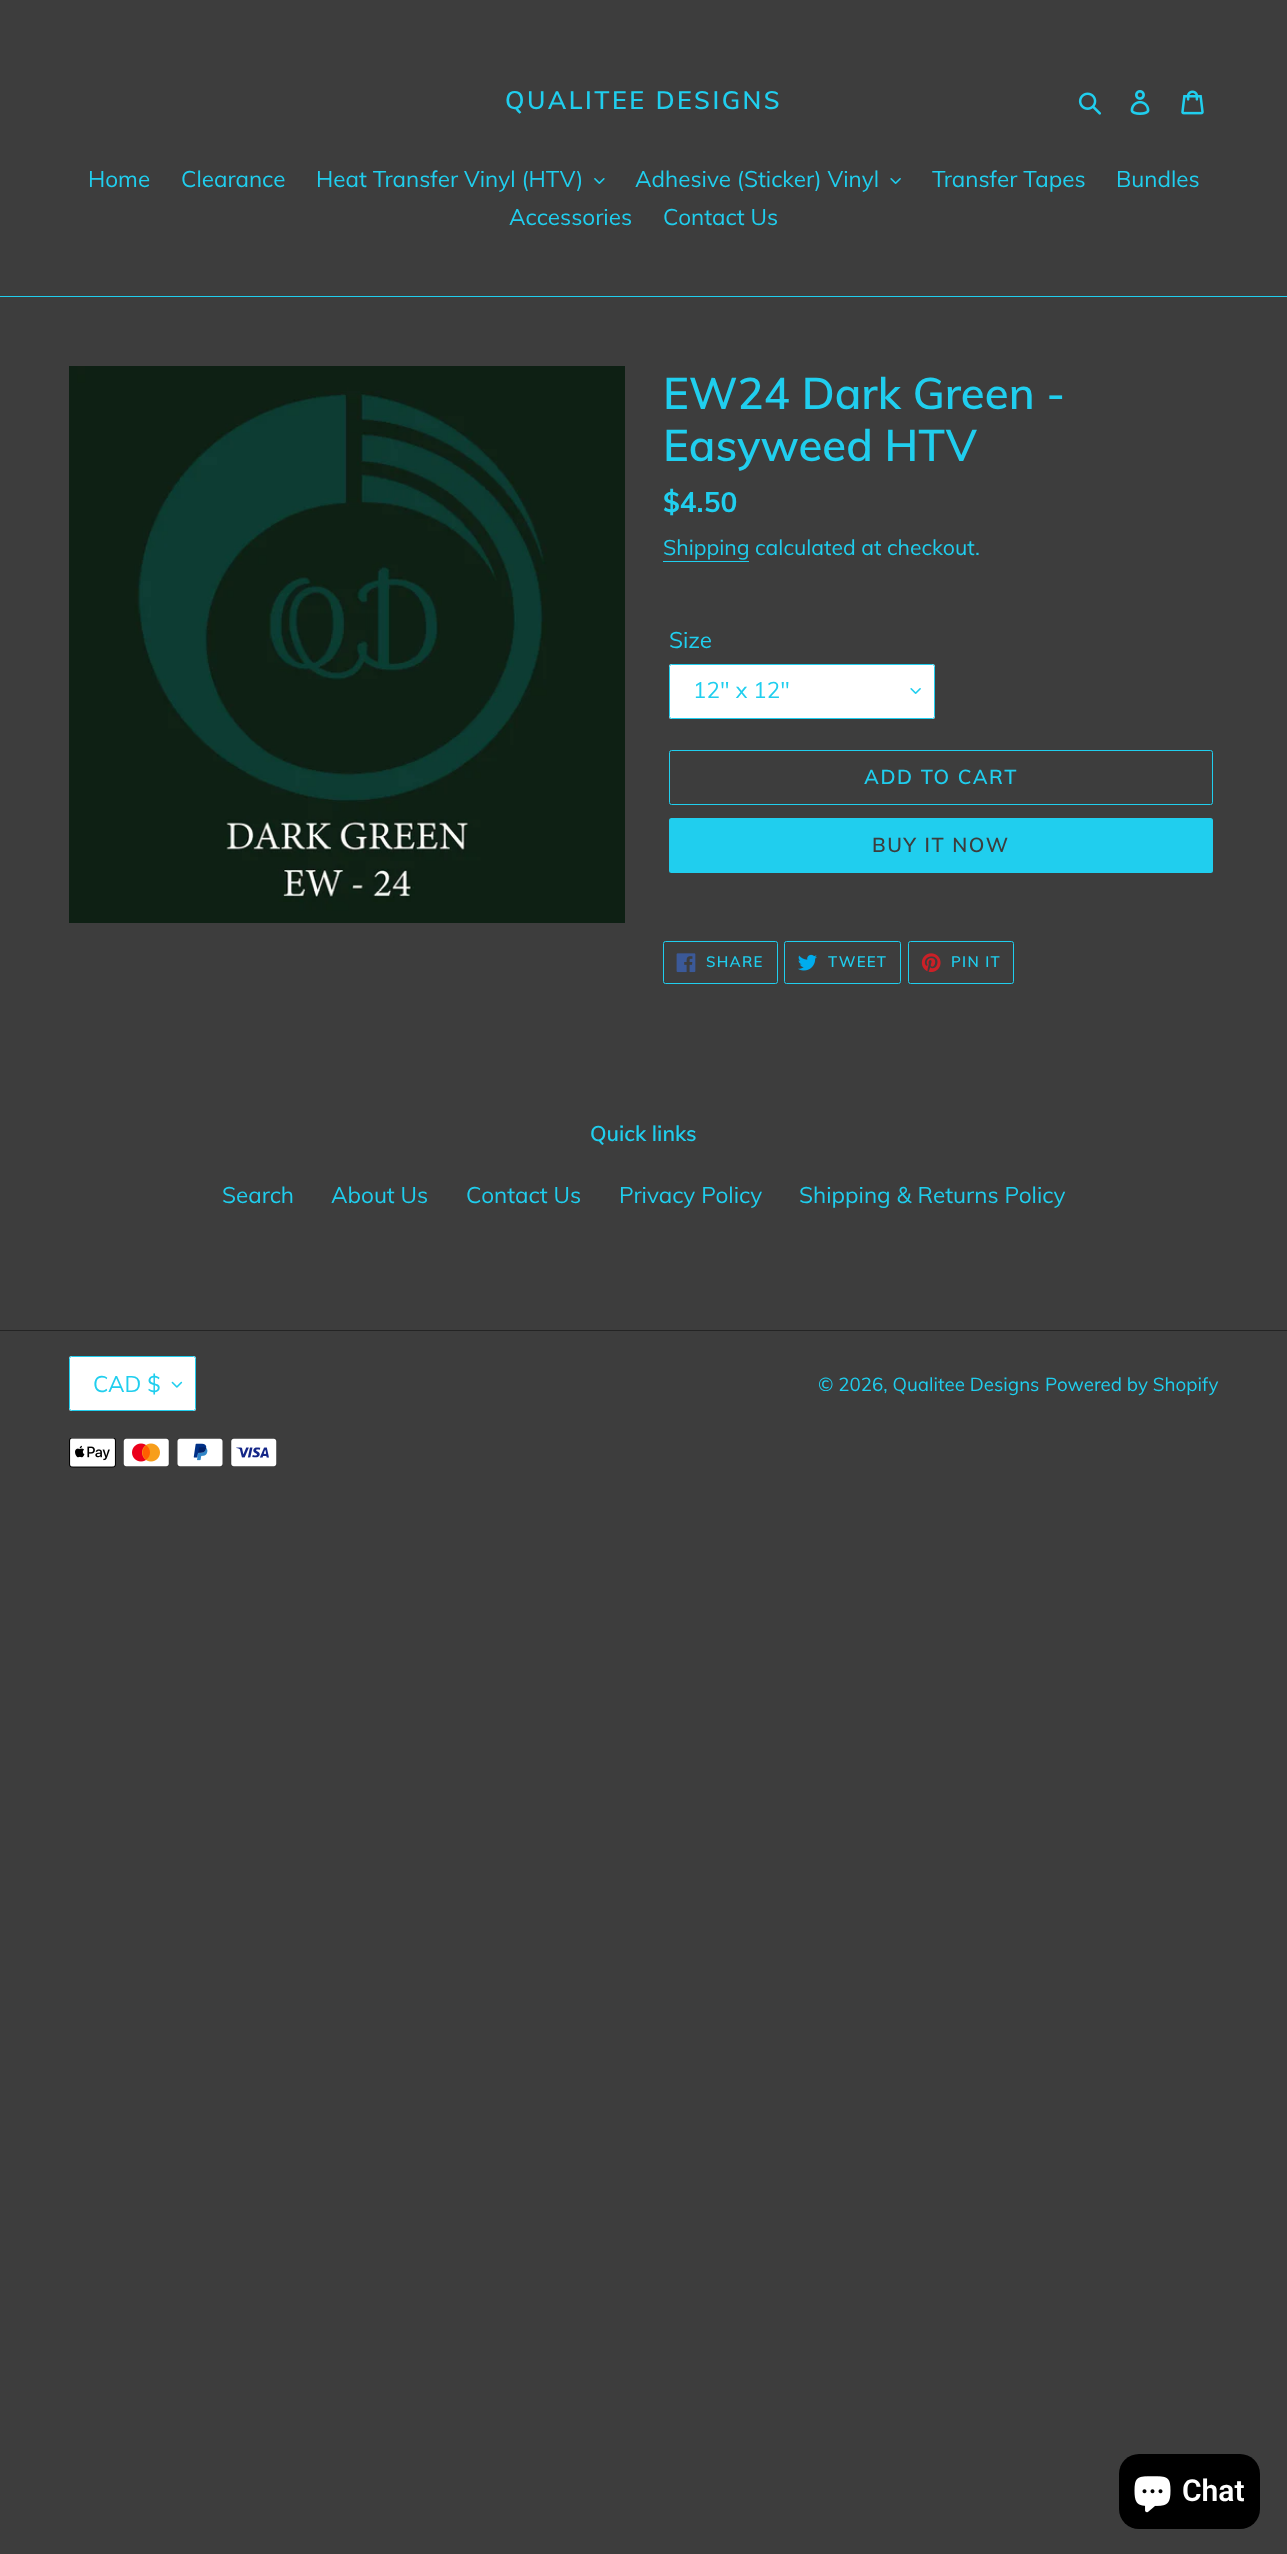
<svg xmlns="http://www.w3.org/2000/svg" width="1287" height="2554">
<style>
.a{font:600 25px Muli;letter-spacing:2.5px;fill:#20ceee}
.b{font:22.5px Muli;fill:#20ceee}
.c{font:600 43.75px Muli;fill:#20ceee}
.d{font:bold 28px Muli;fill:#20ceee}
.e{font:21.25px Muli;fill:#20ceee}
.f{font:600 20px Muli;letter-spacing:1.6px;fill:#20ceee}
.g{font:600 20px Muli;letter-spacing:1.6px;fill:#3d3d3d}
.h{font:600 15px Muli;letter-spacing:1.25px;fill:#20ceee}
.i{font:600 21.25px Muli;fill:#20ceee}
.j{font:18.75px Muli;fill:#20ceee}
.k{font:600 30px Roboto;fill:#fff}
</style>
<rect width="100%" height="100%" fill="#3d3d3d"/>
<image href="1.png" x="1078" y="92" width="23" height="23"/>
<image href="2.png" x="1130" y="90" width="20" height="25"/>
<image href="3.png" x="1181" y="90" width="23" height="25"/>
<path fill="#20ceee" d="M0 296h1287v1H0z"/>
<image href="4.png" x="594" y="178" width="11" height="6"/>
<image href="5.png" x="890" y="178" width="11" height="6"/>
<image href="6.png" x="69" y="366" width="556" height="557"/>
<path fill="#20ceee" d="M663 561h86v1H663z"/>
<rect fill="#fff" x="669" y="664" width="266" height="55" rx="2.5"/>
<image href="7.png" x="910" y="688" width="11" height="6"/>
<rect fill="none" stroke="#20ceee" x="669.5" y="664.5" width="265" height="54" rx="2"/>
<rect fill="none" stroke="#20ceee" x="669.5" y="750.5" width="543" height="54" rx="2"/>
<rect fill="#20ceee" x="669" y="818" width="544" height="55" rx="2.5"/>
<rect fill="none" stroke="#20ceee" x="663.5" y="941.5" width="114" height="42" rx="2"/>
<image href="8.png" x="676" y="953" width="20" height="20"/>
<rect fill="none" stroke="#20ceee" x="784.5" y="941.5" width="116" height="42" rx="2"/>
<image href="9.png" x="798" y="954" width="19" height="17"/>
<rect fill="none" stroke="#20ceee" x="908.5" y="941.5" width="105" height="42" rx="2"/>
<image href="10.png" x="921" y="953" width="20" height="19"/>
<path fill="#242424" d="M0 1330h1287v1H0z"/>
<rect fill="#fff" x="69" y="1356" width="127" height="55" rx="2.5"/>
<image href="11.png" x="171" y="1381" width="12" height="7"/>
<rect fill="none" stroke="#20ceee" x="69.5" y="1356.5" width="126" height="54" rx="2"/>
<image href="12.png" x="69" y="1438" width="47" height="30"/>
<image href="13.png" x="123" y="1438" width="47" height="29"/>
<image href="14.png" x="177" y="1438" width="46" height="29"/>
<image href="15.png" x="230" y="1438" width="47" height="29"/>
<rect fill="#000" x="1119" y="2454" width="141" height="75" rx="20"/>
<image href="16.png" x="1134" y="2476" width="37" height="37"/>
<text class="a" x="505" y="109">QUALITEE DESIGNS</text>
<text class="b" x="88" y="187">Home</text>
<text class="b" x="181" y="187">Clearance</text>
<text class="b" x="316" y="187">Heat Transfer Vinyl (HTV)</text>
<text class="b" x="635" y="187">Adhesive (Sticker) Vinyl</text>
<text class="b" x="932" y="187">Transfer Tapes</text>
<text class="b" x="1116" y="187">Bundles</text>
<text class="b" x="509" y="225">Accessories</text>
<text class="b" x="663" y="225">Contact Us</text>
<text class="c" x="663" y="409">EW24 Dark Green -</text>
<text class="c" x="663" y="461">Easyweed HTV</text>
<text class="d" x="663" y="512">$4.50</text>
<text class="e" x="663" y="555">Shipping calculated at checkout.</text>
<text class="b" x="669" y="648">Size</text>
<text class="b" x="693" y="698">12" x 12"</text>
<text class="f" x="864" y="784">ADD TO CART</text>
<text class="g" x="872" y="852">BUY IT NOW</text>
<text class="h" x="706" y="967">SHARE</text>
<text class="h" x="828" y="967">TWEET</text>
<text class="h" x="951" y="967">PIN IT</text>
<text class="i" x="590" y="1141">Quick links</text>
<text class="b" x="222" y="1203">Search</text>
<text class="b" x="331" y="1203">About Us</text>
<text class="b" x="466" y="1203">Contact Us</text>
<text class="b" x="619" y="1203">Privacy Policy</text>
<text class="b" x="799" y="1203">Shipping &amp; Returns Policy</text>
<text class="b" x="93" y="1392">CAD $</text>
<text class="j" x="818" y="1391">© 2026, Qualitee Designs</text>
<text class="j" x="1045" y="1391">Powered by Shopify</text>
<text class="k" x="1182" y="2501">Chat</text>
</svg>
